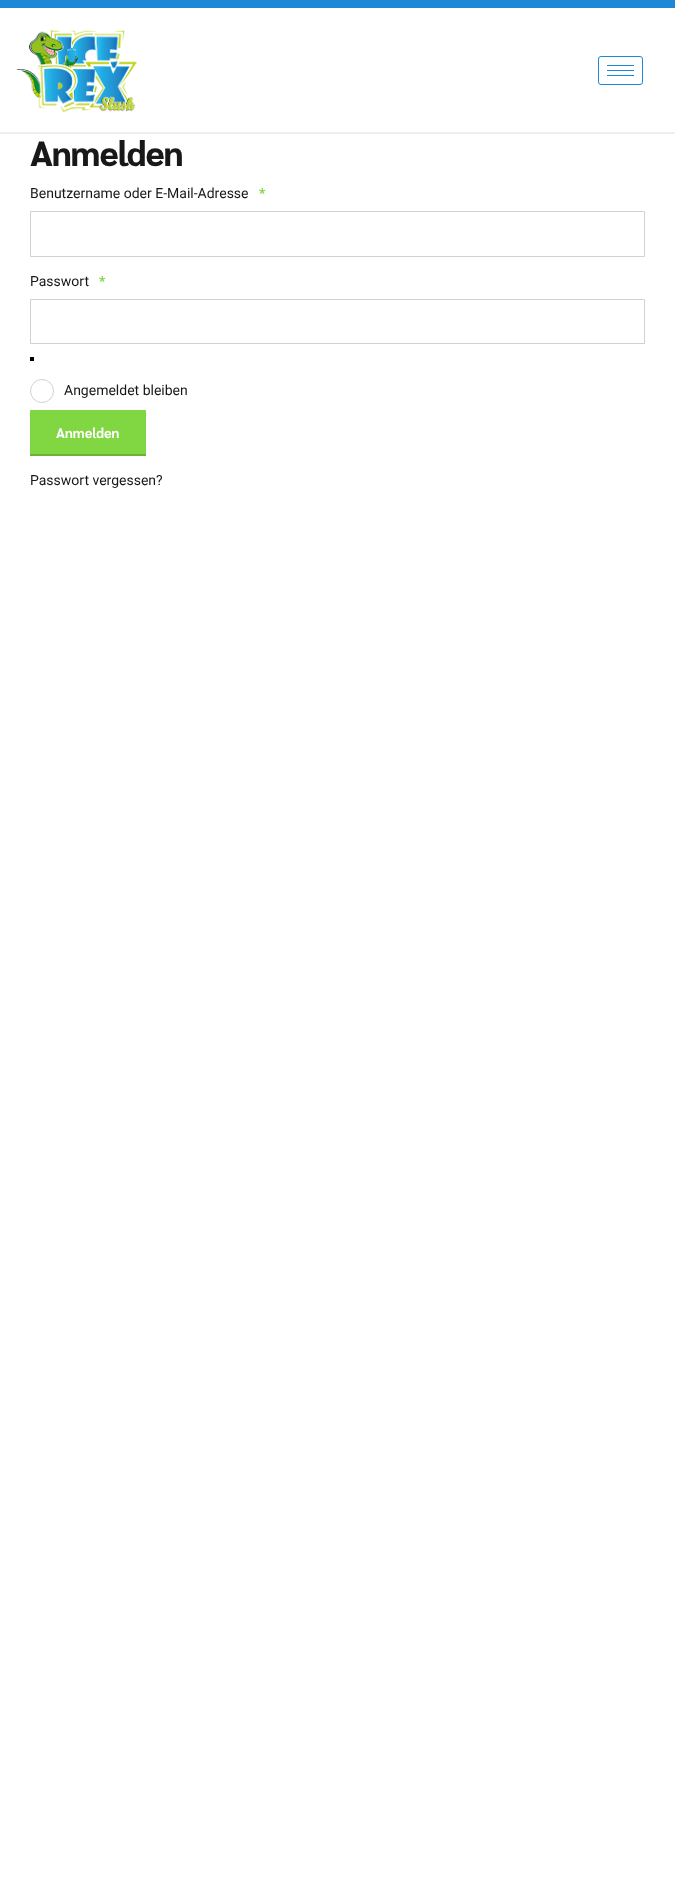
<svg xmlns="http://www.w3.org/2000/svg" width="675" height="1904">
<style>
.a{font:800 35px Sarabun;letter-spacing:-1px;fill:#181818}
.b{font:14px Roboto;fill:#181818}
.c{font:bold 14px Roboto;fill:#81d742}
.d{font:bold 14px Sarabun;fill:#fff}
</style>
<rect width="100%" height="100%" fill="#fff"/>
<path fill="#eee" d="M0 132h675v2H0z"/>
<path fill="#1d87d8" d="M0 0h675v8H0z"/>
<image href="1.png" x="16" y="29" width="121" height="84"/>
<rect fill="none" stroke="#1d87d8" x="598.5" y="56.5" width="44" height="28" rx="2.5"/>
<path fill="#1d87d8" d="M607 65h27v1H607z"/>
<path fill="#1d87d8" d="M607 70h27v1H607z"/>
<path fill="#1d87d8" d="M607 75h27v1H607z"/>
<path fill="none" stroke="#d1d1d1" d="M30.5 211.5h614v45H30.5z"/>
<path fill="none" stroke="#d1d1d1" d="M30.5 299.5h614v44H30.5z"/>
<path fill="#000" d="M30 357h4v4H30z"/>
<circle fill="none" stroke="#d1d1d1" cx="42" cy="391" r="11.5"/>
<path fill="#81d742" d="M30 410h116v44H30z"/>
<path fill="#6cb13a" d="M30 454h116v2H30z"/>
<text class="a" x="30" y="166">Anmelden</text>
<text class="b" x="30" y="198">Benutzername oder E-Mail-Adresse</text>
<text class="c" x="259" y="198">*</text>
<text class="b" x="30" y="286">Passwort</text>
<text class="c" x="99" y="286">*</text>
<text class="b" x="64" y="395">Angemeldet bleiben</text>
<text class="d" x="56" y="438">Anmelden</text>
<text class="b" x="30" y="485">Passwort vergessen?</text>
</svg>
